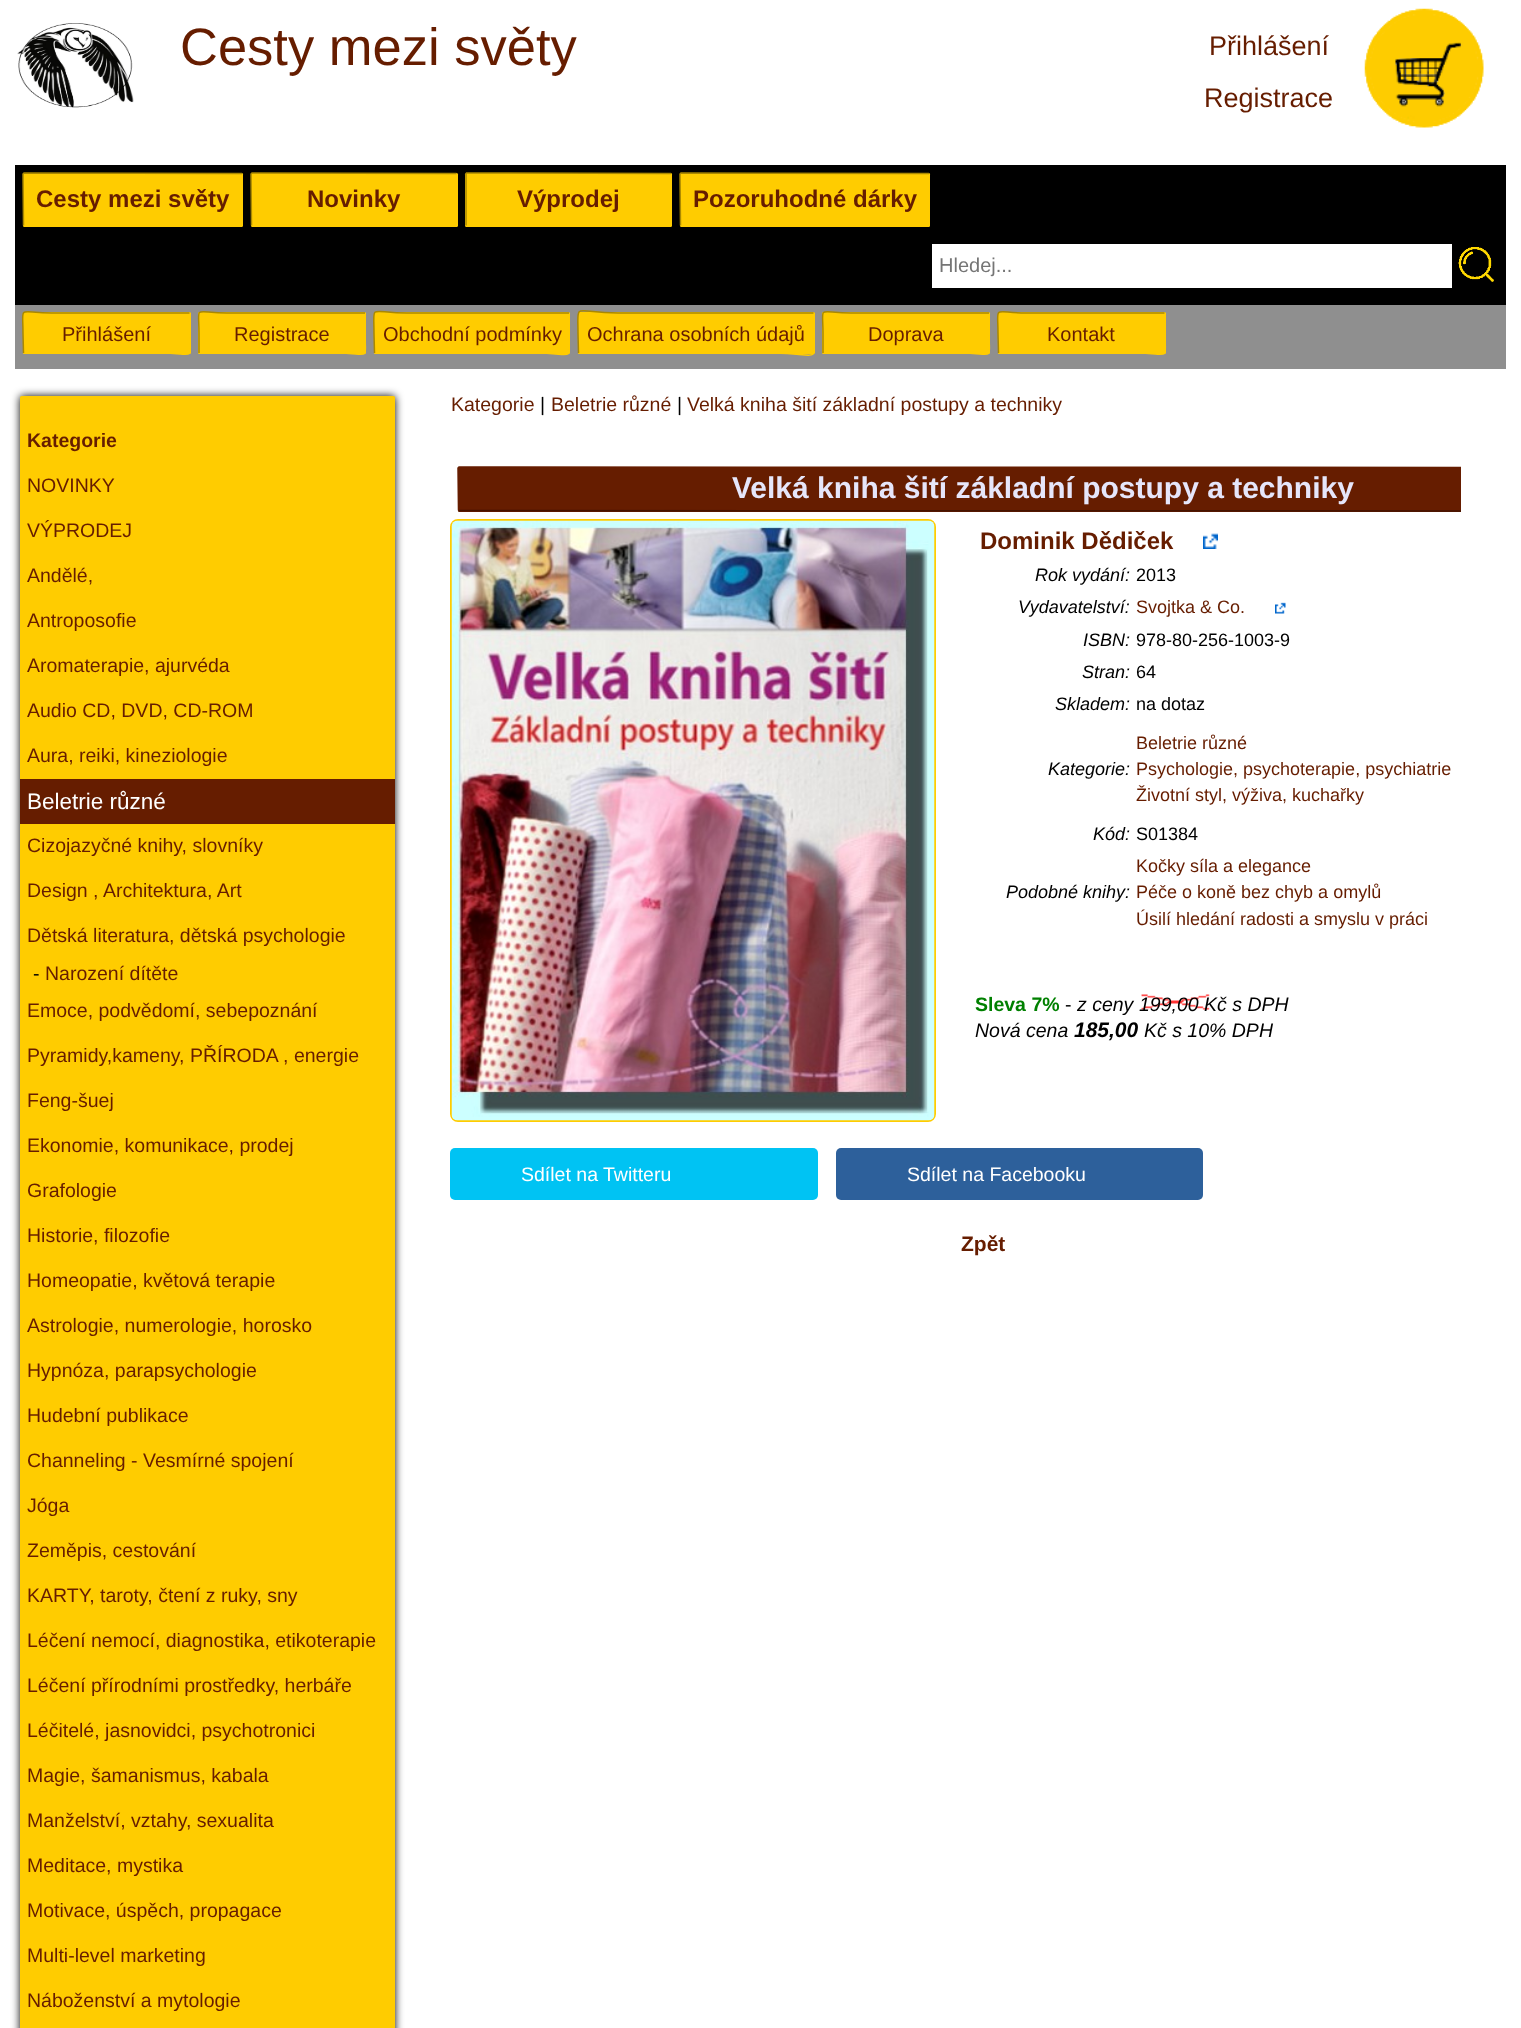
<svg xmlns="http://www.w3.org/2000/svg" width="1521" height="2028">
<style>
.a{font:52.5px Liberation Sans;fill:#661d00}
.b{font:27px Liberation Sans;fill:#661d00}
.c{font:bold 24px Liberation Sans;fill:#661d00}
.d{font:20px Liberation Sans;fill:#757575}
.e{font:20px Liberation Sans;fill:#661d00}
.f{font:bold 19.5px Liberation Sans;fill:#661d00}
.g{font:19.5px Liberation Sans;fill:#661d00}
.h{font:22.5px Liberation Sans;fill:#fff}
.i{font:19.5px Liberation Sans;fill:#000}
.j{font:bold 30px Liberation Sans;fill:#e6e6fa}
.k{font:italic 18px Liberation Sans;fill:#000}
.l{font:18px Liberation Sans;fill:#000}
.m{font:18px Liberation Sans;fill:#661d00}
.n{font:bold 19.5px Liberation Sans;fill:#008000}
.o{font:italic 19.5px Liberation Sans;fill:#000}
.p{font:italic bold 21px Liberation Sans;fill:#000}
.q{font:19.5px Liberation Sans;fill:#fff}
.r{font:bold 21px Liberation Sans;fill:#661d00}
</style>
<defs>
<clipPath id="clip1"><path d="M435 392h1026v879H435z"/></clipPath>
</defs>
<rect width="100%" height="100%" fill="#fff"/>
<image href="1.png" x="17" y="23" width="117" height="85"/>
<image href="2.png" x="1364" y="8" width="120" height="120"/>
<path fill="#000" d="M15 165h1491v140H15z"/>
<rect fill="#fc0" x="23" y="173" width="220" height="54" rx="1.5"/>
<path fill="none" stroke="#fc0" stroke-width="1.5" d="M242 173.5v51.5l-.5 1l-218-.5"/>
<path fill="none" stroke="#a80" stroke-width="1.5" d="M23.5 225.5l-.5-51.5l1-1l218 .5"/>
<rect fill="#fc0" x="251" y="173" width="207" height="54" rx="1.5"/>
<path fill="none" stroke="#fc0" stroke-width="1.5" d="M456.5 173.5l.5 51.5l-1 1l-204.5-.5"/>
<path fill="none" stroke="#a80" stroke-width="1.5" d="M251.5 225.5l-.5-51.5l1-1l204.5 .5"/>
<rect fill="#fc0" x="465" y="173" width="207" height="54" rx="1.5"/>
<path fill="none" stroke="#fc0" stroke-width="1.5" d="M671 173.5v51.5l-.5 1l-204.5-.5"/>
<path fill="none" stroke="#a80" stroke-width="1.5" d="M466 225.5v-51.5l.5-1l204.5 .5"/>
<rect fill="#fc0" x="680" y="173" width="250" height="54" rx="1.5"/>
<path fill="none" stroke="#fc0" stroke-width="1.5" d="M929 173.5v51.5l-.5 1l-248-.5"/>
<path fill="none" stroke="#a80" stroke-width="1.5" d="M680.5 225.5l-.5-51.5l1-1l248 .5"/>
<rect fill="#fff" stroke="#000" stroke-width="2" x="931" y="243" width="522" height="46" rx="0.5"/>
<image href="3.png" x="1458" y="247" width="36" height="35"/>
<path fill="#8f8f8f" d="M15 305h1491v64H15z"/>
<rect fill="#fc0" x="23" y="312" width="168" height="42" rx="1.5"/>
<path fill="none" stroke="#fc0" stroke-width="1.5" d="M189.5 313l.5 20c0 29 6 20-28.5 20h-138"/>
<path fill="none" stroke="#a80" stroke-width="1.5" d="M23.5 353l-.5-20c0-29-6-20 28.5-20h138"/>
<rect fill="#fc0" x="198" y="312" width="168" height="42" rx="1.5"/>
<path fill="none" stroke="#fc0" stroke-width="1.5" d="M365 313v20c0 29 6.5 20-28 20h-138"/>
<path fill="none" stroke="#a80" stroke-width="1.5" d="M199 353v-20c0-29-6.5-20 28-20h138"/>
<rect fill="#fc0" x="374" y="312" width="196" height="42" rx="1.5"/>
<path fill="none" stroke="#fc0" stroke-width="1.5" d="M569 313v20c0 30.5 6 20-33 20h-161.5"/>
<path fill="none" stroke="#a80" stroke-width="1.5" d="M374.5 353l-.5-20c0-30.5-5.5-20 33-20h162"/>
<rect fill="#fc0" x="578" y="312" width="237" height="42" rx="1.5"/>
<path fill="none" stroke="#fc0" stroke-width="1.5" d="M813.5 313l.5 20c0 32.5 5.5 20-40 20h-195.5"/>
<path fill="none" stroke="#a80" stroke-width="1.5" d="M578.5 353l-.5-20c0-32.5-5.5-20 40-20h195.5"/>
<rect fill="#fc0" x="822" y="312" width="168" height="42" rx="1.5"/>
<path fill="none" stroke="#fc0" stroke-width="1.5" d="M989 313v20c0 29 6.5 20-28 20h-138"/>
<path fill="none" stroke="#a80" stroke-width="1.5" d="M823 353v-20c0-29-6.5-20 28-20h138"/>
<rect fill="#fc0" x="998" y="312" width="168" height="42" rx="1.5"/>
<path fill="none" stroke="#fc0" stroke-width="1.5" d="M1164.5 313l.5 20c0 29 6 20-28.5 20h-138"/>
<path fill="none" stroke="#a80" stroke-width="1.5" d="M998.5 353l-.5-20c0-29-6-20 28.5-20h138"/>
<rect fill="#000" filter="blur(4px)" x="20" y="396" width="375" height="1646" rx="1.5"/>
<rect fill="#fc0" x="20" y="396" width="375" height="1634" rx="1.5"/>
<path fill="#661d00" d="M20 779h375v45H20z"/>
<path fill="#661d00" d="M459.5 467h1001.5v45h-1001.5c-1 0-1.5-.5-1.5-1.5v-42c0-1 .5-1.5 1.5-1.5z"/>
<g clip-path="url(#clip1)">
<path fill="none" stroke="#441300" stroke-width="1.5" d="M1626.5 467.5l.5 42.5l-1 1l-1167.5-.5"/>
<path fill="none" stroke="#661d00" stroke-width="1.5" d="M458.5 510.5l-.5-42.5l1-1l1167.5 .5"/>
</g>
<rect fill="none" stroke="#fc0" stroke-width="2" x="451" y="520" width="484" height="601" rx="7"/>
<image href="4.png" x="451" y="520" width="484" height="601"/>
<image href="5.png" x="1203" y="533" width="15" height="16"/>
<image href="6.png" x="1275" y="602" width="11" height="12"/>
<image href="7.png" x="1141" y="994" width="69" height="16"/>
<rect fill="#00c3f3" x="450" y="1148" width="368" height="52" rx="5"/>
<rect fill="#2d609b" x="836" y="1148" width="367" height="52" rx="5"/>
<text class="a" x="180" y="65">Cesty mezi světy</text>
<text class="b" x="1209" y="55">Přihlášení</text>
<text class="b" x="1204" y="107">Registrace</text>
<text class="c" x="36" y="207">Cesty mezi světy</text>
<text class="c" x="307" y="207">Novinky</text>
<text class="c" x="517" y="207">Výprodej</text>
<text class="c" x="693" y="207">Pozoruhodné dárky</text>
<text class="d" x="939" y="272">Hledej...</text>
<text class="e" x="62" y="341">Přihlášení</text>
<text class="e" x="234" y="341">Registrace</text>
<text class="e" x="383" y="341">Obchodní podmínky</text>
<text class="e" x="587" y="341">Ochrana osobních údajů</text>
<text class="e" x="868" y="341">Doprava</text>
<text class="e" x="1047" y="341">Kontakt</text>
<text class="f" x="27" y="447">Kategorie</text>
<text class="g" x="27" y="492">NOVINKY</text>
<text class="g" x="27" y="537">VÝPRODEJ</text>
<text class="g" x="27" y="582">Andělé,</text>
<text class="g" x="27" y="627">Antroposofie</text>
<text class="g" x="27" y="672">Aromaterapie, ajurvéda</text>
<text class="g" x="27" y="717">Audio CD, DVD, CD-ROM</text>
<text class="g" x="27" y="762">Aura, reiki, kineziologie</text>
<text class="h" x="27" y="809">Beletrie různé</text>
<text class="g" x="27" y="852">Cizojazyčné knihy, slovníky</text>
<text class="g" x="27" y="897">Design , Architektura, Art</text>
<text class="g" x="27" y="942">Dětská literatura, dětská psychologie</text>
<text class="i" x="33" y="980">-</text>
<text class="g" x="45" y="980">Narození dítěte</text>
<text class="g" x="27" y="1017">Emoce, podvědomí, sebepoznání</text>
<text class="g" x="27" y="1062">Pyramidy,kameny, PŘÍRODA , energie</text>
<text class="g" x="27" y="1107">Feng-šuej</text>
<text class="g" x="27" y="1152">Ekonomie, komunikace, prodej</text>
<text class="g" x="27" y="1197">Grafologie</text>
<text class="g" x="27" y="1242">Historie, filozofie</text>
<text class="g" x="27" y="1287">Homeopatie, květová terapie</text>
<text class="g" x="27" y="1332">Astrologie, numerologie, horosko</text>
<text class="g" x="27" y="1377">Hypnóza, parapsychologie</text>
<text class="g" x="27" y="1422">Hudební publikace</text>
<text class="g" x="27" y="1467">Channeling - Vesmírné spojení</text>
<text class="g" x="27" y="1512">Jóga</text>
<text class="g" x="27" y="1557">Zeměpis, cestování</text>
<text class="g" x="27" y="1602">KARTY, taroty, čtení z ruky, sny</text>
<text class="g" x="27" y="1647">Léčení nemocí, diagnostika, etikoterapie</text>
<text class="g" x="27" y="1692">Léčení přírodními prostředky, herbáře</text>
<text class="g" x="27" y="1737">Léčitelé, jasnovidci, psychotronici</text>
<text class="g" x="27" y="1782">Magie, šamanismus, kabala</text>
<text class="g" x="27" y="1827">Manželství, vztahy, sexualita</text>
<text class="g" x="27" y="1872">Meditace, mystika</text>
<text class="g" x="27" y="1917">Motivace, úspěch, propagace</text>
<text class="g" x="27" y="1962">Multi-level marketing</text>
<text class="g" x="27" y="2007">Náboženství a mytologie</text>
<text class="g" x="451" y="411">Kategorie</text>
<text class="i" x="540" y="411">|</text>
<text class="g" x="551" y="411">Beletrie různé</text>
<text class="i" x="677" y="411">|</text>
<text class="g" x="687" y="411">Velká kniha šití základní postupy a techniky</text>
<text class="j" x="732" y="498">Velká kniha šití základní postupy a techniky</text>
<text class="c" x="980" y="549">Dominik Dědiček</text>
<text class="k" x="1035" y="581">Rok vydání:</text>
<text class="l" x="1136" y="581">2013</text>
<text class="k" x="1018" y="613">Vydavatelství:</text>
<text class="m" x="1136" y="613">Svojtka &amp; Co.</text>
<text class="k" x="1083" y="646">ISBN:</text>
<text class="l" x="1136" y="646">978-80-256-1003-9</text>
<text class="k" x="1082" y="678">Stran:</text>
<text class="l" x="1136" y="678">64</text>
<text class="k" x="1055" y="710">Skladem:</text>
<text class="l" x="1136" y="710">na dotaz</text>
<text class="k" x="1048" y="775">Kategorie:</text>
<text class="m" x="1136" y="749">Beletrie různé</text>
<text class="m" x="1136" y="775">Psychologie, psychoterapie, psychiatrie</text>
<text class="m" x="1136" y="801">Životní styl, výživa, kuchařky</text>
<text class="k" x="1093" y="840">Kód:</text>
<text class="l" x="1136" y="840">S01384</text>
<text class="k" x="1006" y="898">Podobné knihy:</text>
<text class="m" x="1136" y="872">Kočky síla a elegance</text>
<text class="m" x="1136" y="898">Péče o koně bez chyb a omylů</text>
<text class="m" x="1136" y="925">Úsilí hledání radosti a smyslu v práci</text>
<text class="n" x="975" y="1011">Sleva 7%</text>
<text class="i" x="1065" y="1011">-</text>
<text class="o" x="1077" y="1011">z ceny</text>
<text class="o" x="1139" y="1011">199,00 Kč s DPH</text>
<text class="o" x="975" y="1037">Nová cena</text>
<text class="p" x="1074" y="1037">185,00</text>
<text class="o" x="1144" y="1037">Kč s 10% DPH</text>
<text class="q" x="521" y="1181">Sdílet na Twitteru</text>
<text class="q" x="907" y="1181">Sdílet na Facebooku</text>
<text class="r" x="961" y="1251">Zpět</text>
</svg>
